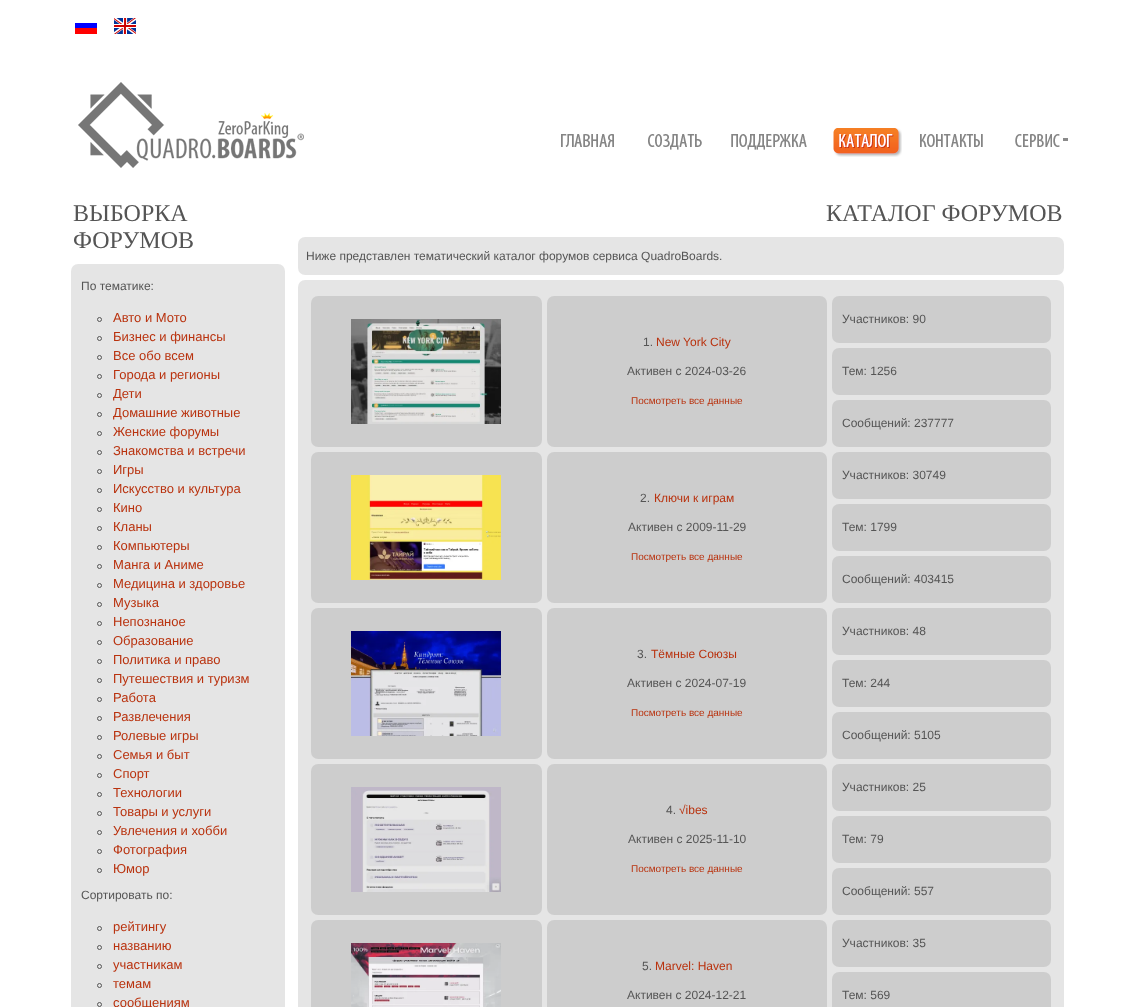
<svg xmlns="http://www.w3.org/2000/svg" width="1136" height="1007">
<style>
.a{font:24px Liberation Serif;fill:#555}
.b{font:12px Liberation Sans;fill:#555}
.c{font:13px Liberation Sans;fill:#b9320e}
.d{font:12px Liberation Sans;fill:#b9320e}
.e{font:10px Liberation Sans;fill:#b9320e}
</style>
<rect width="100%" height="100%" fill="#fff"/>
<image href="1.png" x="75" y="20" width="22" height="14"/>
<image href="2.png" x="114" y="18" width="22" height="16"/>
<image href="3.png" x="78" y="82" width="226" height="86"/>
<image href="4.png" x="561" y="134" width="53" height="13"/>
<image href="5.png" x="648" y="134" width="54" height="16"/>
<image href="6.png" x="731" y="134" width="76" height="16"/>
<image href="7.png" x="833" y="128" width="69" height="29"/>
<image href="8.png" x="920" y="134" width="63" height="13"/>
<path fill="#8a8a8a" d="M1063 138h5v3H1063z"/>
<image href="9.png" x="1015" y="134" width="45" height="13"/>
<image href="10.png" x="71" y="264" width="214" height="743"/>
<circle fill="none" stroke="#555" cx="99.5" cy="319.5" r="2"/>
<circle fill="none" stroke="#555" cx="99.5" cy="338.5" r="2"/>
<circle fill="none" stroke="#555" cx="99.5" cy="357.5" r="2"/>
<circle fill="none" stroke="#555" cx="99.5" cy="376.5" r="2"/>
<circle fill="none" stroke="#555" cx="99.5" cy="395.5" r="2"/>
<circle fill="none" stroke="#555" cx="99.5" cy="414.5" r="2"/>
<circle fill="none" stroke="#555" cx="99.5" cy="433.5" r="2"/>
<circle fill="none" stroke="#555" cx="99.5" cy="452.5" r="2"/>
<circle fill="none" stroke="#555" cx="99.5" cy="471.5" r="2"/>
<circle fill="none" stroke="#555" cx="99.5" cy="490.5" r="2"/>
<circle fill="none" stroke="#555" cx="99.5" cy="509.5" r="2"/>
<circle fill="none" stroke="#555" cx="99.5" cy="528.5" r="2"/>
<circle fill="none" stroke="#555" cx="99.5" cy="547.5" r="2"/>
<circle fill="none" stroke="#555" cx="99.5" cy="566.5" r="2"/>
<circle fill="none" stroke="#555" cx="99.5" cy="585.5" r="2"/>
<circle fill="none" stroke="#555" cx="99.5" cy="604.5" r="2"/>
<circle fill="none" stroke="#555" cx="99.5" cy="623.5" r="2"/>
<circle fill="none" stroke="#555" cx="99.5" cy="642.5" r="2"/>
<circle fill="none" stroke="#555" cx="99.5" cy="661.5" r="2"/>
<circle fill="none" stroke="#555" cx="99.5" cy="680.5" r="2"/>
<circle fill="none" stroke="#555" cx="99.5" cy="699.5" r="2"/>
<circle fill="none" stroke="#555" cx="99.5" cy="718.5" r="2"/>
<circle fill="none" stroke="#555" cx="99.5" cy="737.5" r="2"/>
<circle fill="none" stroke="#555" cx="99.5" cy="756.5" r="2"/>
<circle fill="none" stroke="#555" cx="99.5" cy="775.5" r="2"/>
<circle fill="none" stroke="#555" cx="99.5" cy="794.5" r="2"/>
<circle fill="none" stroke="#555" cx="99.5" cy="813.5" r="2"/>
<circle fill="none" stroke="#555" cx="99.5" cy="832.5" r="2"/>
<circle fill="none" stroke="#555" cx="99.5" cy="851.5" r="2"/>
<circle fill="none" stroke="#555" cx="99.5" cy="870.5" r="2"/>
<circle fill="none" stroke="#555" cx="99.5" cy="928.5" r="2"/>
<circle fill="none" stroke="#555" cx="99.5" cy="947.5" r="2"/>
<circle fill="none" stroke="#555" cx="99.5" cy="966.5" r="2"/>
<circle fill="none" stroke="#555" cx="99.5" cy="985.5" r="2"/>
<circle fill="none" stroke="#555" cx="99.5" cy="1004.5" r="2"/>
<image href="11.png" x="298" y="237" width="766" height="38"/>
<image href="12.png" x="298" y="280" width="766" height="727"/>
<image href="13.png" x="311" y="296" width="231" height="151"/>
<image href="14.png" x="351" y="319" width="150" height="105"/>
<image href="15.png" x="832" y="296" width="219" height="47"/>
<image href="16.png" x="547" y="296" width="280" height="151"/>
<image href="15.png" x="832" y="348" width="219" height="47"/>
<image href="15.png" x="832" y="400" width="219" height="47"/>
<image href="13.png" x="311" y="452" width="231" height="151"/>
<image href="17.png" x="351" y="475" width="150" height="105"/>
<image href="15.png" x="832" y="452" width="219" height="47"/>
<image href="16.png" x="547" y="452" width="280" height="151"/>
<image href="18.png" x="832" y="504" width="219" height="47"/>
<image href="15.png" x="832" y="556" width="219" height="47"/>
<image href="13.png" x="311" y="608" width="231" height="151"/>
<image href="19.png" x="351" y="631" width="150" height="105"/>
<image href="15.png" x="832" y="608" width="219" height="47"/>
<image href="16.png" x="547" y="608" width="280" height="151"/>
<image href="15.png" x="832" y="660" width="219" height="47"/>
<image href="15.png" x="832" y="712" width="219" height="47"/>
<image href="13.png" x="311" y="764" width="231" height="151"/>
<image href="20.png" x="351" y="787" width="150" height="105"/>
<image href="15.png" x="832" y="764" width="219" height="47"/>
<image href="16.png" x="547" y="764" width="280" height="151"/>
<image href="15.png" x="832" y="816" width="219" height="47"/>
<image href="15.png" x="832" y="868" width="219" height="47"/>
<image href="21.png" x="311" y="920" width="231" height="87"/>
<image href="22.png" x="351" y="943" width="150" height="64"/>
<image href="15.png" x="832" y="920" width="219" height="47"/>
<image href="23.png" x="547" y="920" width="280" height="87"/>
<image href="24.png" x="832" y="972" width="219" height="35"/>
<text class="a" x="73" y="221">ВЫБОРКА</text>
<text class="a" x="73" y="248">ФОРУМОВ</text>
<text class="b" x="81" y="290">По тематике:</text>
<text class="c" x="113" y="322">Авто и Мото</text>
<text class="c" x="113" y="341">Бизнес и финансы</text>
<text class="c" x="113" y="360">Все обо всем</text>
<text class="c" x="113" y="379">Города и регионы</text>
<text class="c" x="113" y="398">Дети</text>
<text class="c" x="113" y="417">Домашние животные</text>
<text class="c" x="113" y="436">Женские форумы</text>
<text class="c" x="113" y="455">Знакомства и встречи</text>
<text class="c" x="113" y="474">Игры</text>
<text class="c" x="113" y="493">Искусство и культура</text>
<text class="c" x="113" y="512">Кино</text>
<text class="c" x="113" y="531">Кланы</text>
<text class="c" x="113" y="550">Компьютеры</text>
<text class="c" x="113" y="569">Манга и Аниме</text>
<text class="c" x="113" y="588">Медицина и здоровье</text>
<text class="c" x="113" y="607">Музыка</text>
<text class="c" x="113" y="626">Непознаное</text>
<text class="c" x="113" y="645">Образование</text>
<text class="c" x="113" y="664">Политика и право</text>
<text class="c" x="113" y="683">Путешествия и туризм</text>
<text class="c" x="113" y="702">Работа</text>
<text class="c" x="113" y="721">Развлечения</text>
<text class="c" x="113" y="740">Ролевые игры</text>
<text class="c" x="113" y="759">Семья и быт</text>
<text class="c" x="113" y="778">Спорт</text>
<text class="c" x="113" y="797">Технологии</text>
<text class="c" x="113" y="816">Товары и услуги</text>
<text class="c" x="113" y="835">Увлечения и хобби</text>
<text class="c" x="113" y="854">Фотография</text>
<text class="c" x="113" y="873">Юмор</text>
<text class="b" x="81" y="899">Сортировать по:</text>
<text class="c" x="113" y="931">рейтингу</text>
<text class="c" x="113" y="950">названию</text>
<text class="c" x="113" y="969">участникам</text>
<text class="c" x="113" y="988">темам</text>
<text class="c" x="113" y="1007">сообщениям</text>
<text class="a" x="826" y="221">КАТАЛОГ ФОРУМОВ</text>
<text class="b" x="306" y="260">Ниже представлен тематический каталог форумов сервиса QuadroBoards.</text>
<text class="b" x="842" y="323">Участников: 90</text>
<text class="b" x="643" y="346">1.</text>
<text class="d" x="656" y="346">New York City</text>
<text class="b" x="627" y="375">Активен с 2024-03-26</text>
<text class="e" x="631" y="404">Посмотреть все данные</text>
<text class="b" x="842" y="375">Тем: 1256</text>
<text class="b" x="842" y="427">Сообщений: 237777</text>
<text class="b" x="842" y="479">Участников: 30749</text>
<text class="b" x="640" y="502">2.</text>
<text class="d" x="654" y="502">Ключи к играм</text>
<text class="b" x="628" y="531">Активен с 2009-11-29</text>
<text class="e" x="631" y="560">Посмотреть все данные</text>
<text class="b" x="842" y="531">Тем: 1799</text>
<text class="b" x="842" y="583">Сообщений: 403415</text>
<text class="b" x="842" y="635">Участников: 48</text>
<text class="b" x="637" y="658">3.</text>
<text class="d" x="651" y="658">Тёмные Союзы</text>
<text class="b" x="627" y="687">Активен с 2024-07-19</text>
<text class="e" x="631" y="716">Посмотреть все данные</text>
<text class="b" x="842" y="687">Тем: 244</text>
<text class="b" x="842" y="739">Сообщений: 5105</text>
<text class="b" x="842" y="791">Участников: 25</text>
<text class="b" x="666" y="814">4.</text>
<text class="d" x="679" y="814">√ibes</text>
<text class="b" x="628" y="843">Активен с 2025-11-10</text>
<text class="e" x="631" y="872">Посмотреть все данные</text>
<text class="b" x="842" y="843">Тем: 79</text>
<text class="b" x="842" y="895">Сообщений: 557</text>
<text class="b" x="842" y="947">Участников: 35</text>
<text class="b" x="642" y="970">5.</text>
<text class="d" x="655" y="970">Marvel: Haven</text>
<text class="b" x="627" y="999">Активен с 2024-12-21</text>
<text class="b" x="842" y="999">Тем: 569</text>
</svg>
